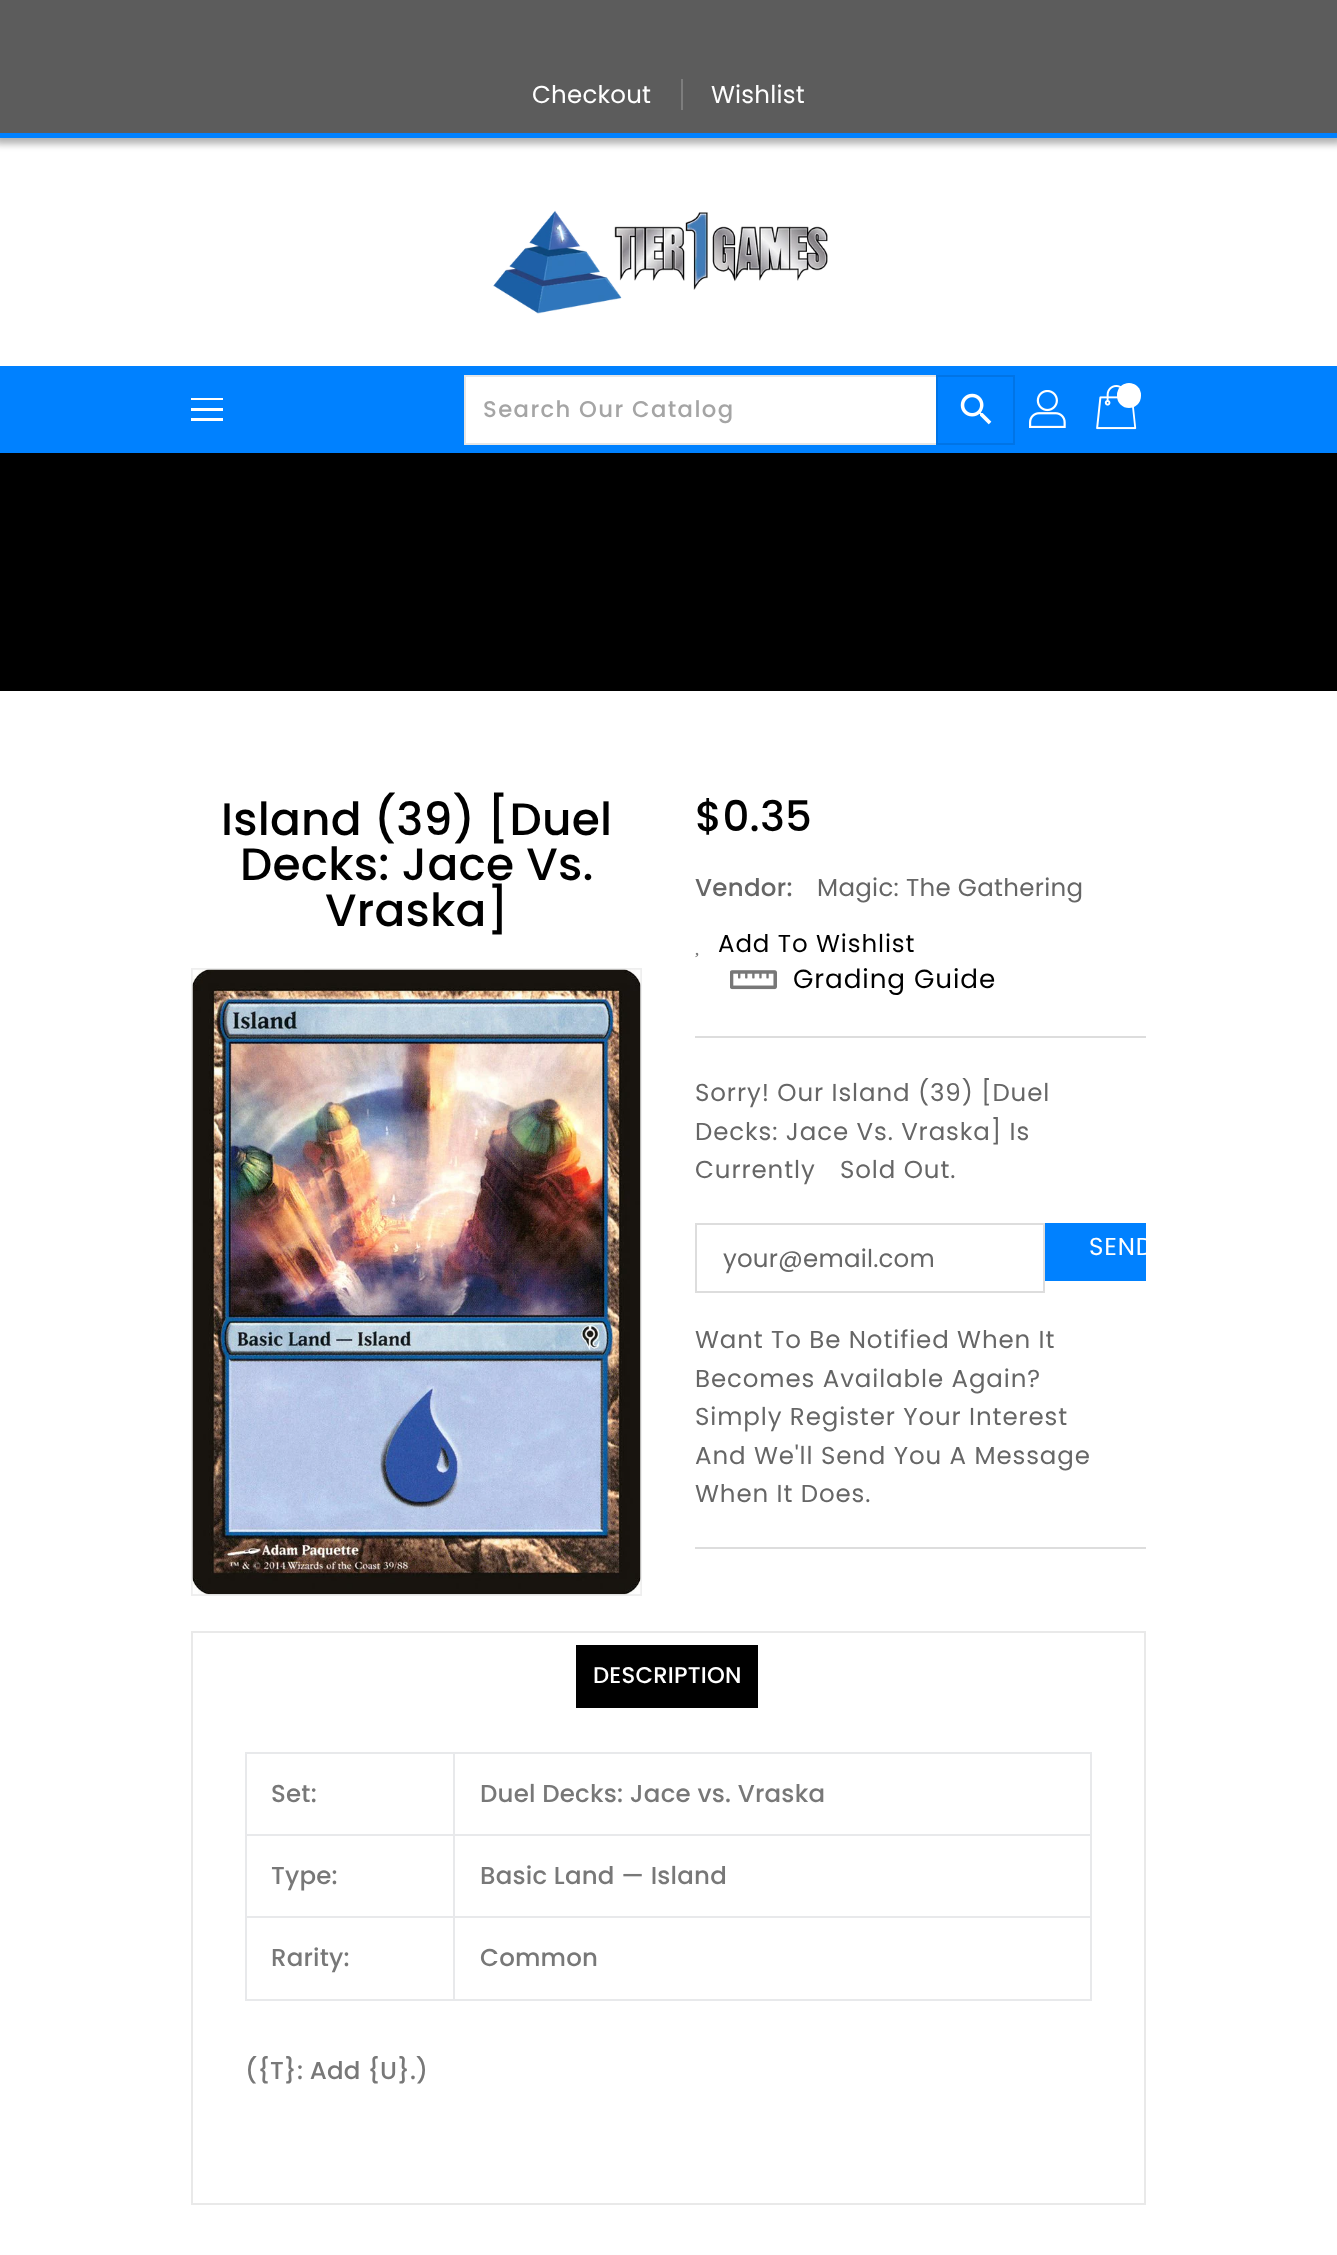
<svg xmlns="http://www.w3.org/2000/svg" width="1337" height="2255">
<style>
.a{font:24.5px Poppins;letter-spacing:0.2px;fill:#fff}
.b{font:500 22.75px Poppins;letter-spacing:1.4px;fill:#a5a5a5}
.c{font:500 45.5px Poppins;letter-spacing:0.2px;fill:#000}
.d{font:500 42px Poppins;letter-spacing:0.2px;fill:#000}
.e{font:500 24.5px Poppins;letter-spacing:0.3px;fill:#666}
.f{font:24.5px Poppins;letter-spacing:0.3px;fill:#666}
.g{font:24.5px Poppins;letter-spacing:0.9px;fill:#000}
.h{font:26.25px Poppins;letter-spacing:0.9px;fill:#000}
.i{font:24.5px Poppins;letter-spacing:0.9px;fill:#666}
.j{font:24.5px Poppins;letter-spacing:0.2px;fill:#666}
.k{font:24.5px Poppins;letter-spacing:0.9px;fill:#fff}
.l{font:500 22.75px Poppins;letter-spacing:0.2px;fill:#fff}
.m{font:500 24.5px Poppins;letter-spacing:0.2px;fill:#787878}
</style>
<defs>
<clipPath id="clip1"><path d="M1047 1223h99v56H1047z"/></clipPath>
</defs>
<rect width="100%" height="100%" fill="#fff"/>
<path fill="#0000004d" filter="blur(3.5px)" d="M-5 -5h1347v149H-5z"/>
<path fill="#5c5c5c" d="M0 0h1337v133H0z"/>
<path fill="#0081ff" d="M0 133h1337v5H0z"/>
<path fill="#7d7d7d" d="M681 79h2v31H681z"/>
<image href="1.png" x="493" y="210" width="335" height="104"/>
<path fill="#0081ff" d="M0 366h1337v87H0z"/>
<path fill="#fff" d="M191 398h32v2H191z"/>
<path fill="#fff" d="M191 408h32v3H191z"/>
<path fill="#fff" d="M191 418h32v3H191z"/>
<path fill="#fff" d="M466 377h470v66H466z"/>
<path fill="none" stroke="#e6e6e6" stroke-width="2" d="M465 376h549v68H465z"/>
<path fill="none" stroke="#0074e6" stroke-width="2" d="M937 376h77v68H937z"/>
<image href="2.png" x="960" y="393" width="32" height="32"/>
<image href="3.png" x="1029" y="390" width="37" height="38"/>
<image href="4.png" x="1096" y="385" width="41" height="45"/>
<rect fill="#fff" x="1117" y="383" width="24" height="25" rx="12"/>
<path fill="#000" d="M0 453h1337v238H0z"/>
<path fill="none" stroke="#eee" stroke-width="2" d="M192 969h449v626H192z"/>
<image href="5.png" x="192" y="969" width="449" height="626"/>
<image href="6.png" x="695" y="952" width="4" height="6"/>
<image href="7.png" x="730" y="970" width="47" height="20"/>
<path fill="#ddd" d="M695 1036h451v2H695z"/>
<path fill="#ddd" d="M695 1547h451v2H695z"/>
<path fill="none" stroke="#ddd" stroke-width="2" d="M696 1224h348v68H696z"/>
<path fill="#0081ff" d="M1045 1223h101v58H1045z"/>
<path fill="none" stroke="#e9e9e9" stroke-width="2" d="M192 1632h953v572H192z"/>
<path fill="#000" d="M576 1645h182v63H576z"/>
<path fill="#e8e9eb" d="M453 1752h639v2H453z"/>
<path fill="#e8e9eb" d="M453 1834h639v2H453z"/>
<path fill="#e8e9eb" d="M453 1916h639v2H453z"/>
<path fill="#e8e9eb" d="M1090 1916h2v84H1090z"/>
<path fill="#e8e9eb" d="M453 1999h639v2H453z"/>
<path fill="#e8e9eb" d="M453 1916h2v84H453z"/>
<path fill="#e8e9eb" d="M245 1916h210v2H245z"/>
<path fill="#e8e9eb" d="M453 1834h2v84H453z"/>
<path fill="#e8e9eb" d="M245 1834h210v2H245z"/>
<path fill="#e8e9eb" d="M453 1752h2v84H453z"/>
<path fill="#e8e9eb" d="M245 1752h210v2H245z"/>
<path fill="#e8e9eb" d="M245 1999h210v2H245z"/>
<path fill="#e8e9eb" d="M245 1916h2v84H245z"/>
<path fill="#e8e9eb" d="M245 1834h2v84H245z"/>
<path fill="#e8e9eb" d="M245 1752h2v84H245z"/>
<path fill="#e8e9eb" d="M1090 1834h2v84H1090z"/>
<path fill="#e8e9eb" d="M1090 1752h2v84H1090z"/>
<text class="a" x="532" y="103">Checkout</text>
<text class="a" x="711" y="103">Wishlist</text>
<text class="b" x="483" y="417">Search Our Catalog</text>
<text class="c" x="221" y="835">Island (39) [Duel</text>
<text class="c" x="240" y="880">Decks: Jace Vs.</text>
<text class="c" x="325" y="926">Vraska]</text>
<text class="d" x="695" y="831">$0.35</text>
<text class="e" x="695" y="896">Vendor:</text>
<text class="f" x="817" y="896">Magic: The Gathering</text>
<text class="g" x="718" y="952">Add To Wishlist</text>
<text class="h" x="793" y="988">Grading Guide</text>
<text class="i" x="695" y="1101">Sorry! Our Island (39) [Duel</text>
<text class="i" x="695" y="1140">Decks: Jace Vs. Vraska] Is</text>
<text class="i" x="695" y="1178">Currently</text>
<text class="i" x="840" y="1178">Sold Out.</text>
<text class="j" x="723" y="1267">your@email.com</text>
<g clip-path="url(#clip1)">
<text class="k" x="1089" y="1255">SEND</text>
</g>
<text class="i" x="695" y="1348">Want To Be Notified When It</text>
<text class="i" x="695" y="1387">Becomes Available Again?</text>
<text class="i" x="695" y="1425">Simply Register Your Interest</text>
<text class="i" x="695" y="1464">And We'll Send You A Message</text>
<text class="i" x="695" y="1502">When It Does.</text>
<text class="l" x="593" y="1683">DESCRIPTION</text>
<text class="m" x="271" y="1802">Set:</text>
<text class="m" x="480" y="1802">Duel Decks: Jace vs. Vraska</text>
<text class="m" x="271" y="1884">Type:</text>
<text class="m" x="480" y="1884">Basic Land — Island</text>
<text class="m" x="271" y="1966">Rarity:</text>
<text class="m" x="480" y="1966">Common</text>
<text class="m" x="245" y="2079">({T}: Add {U}.)</text>
</svg>
